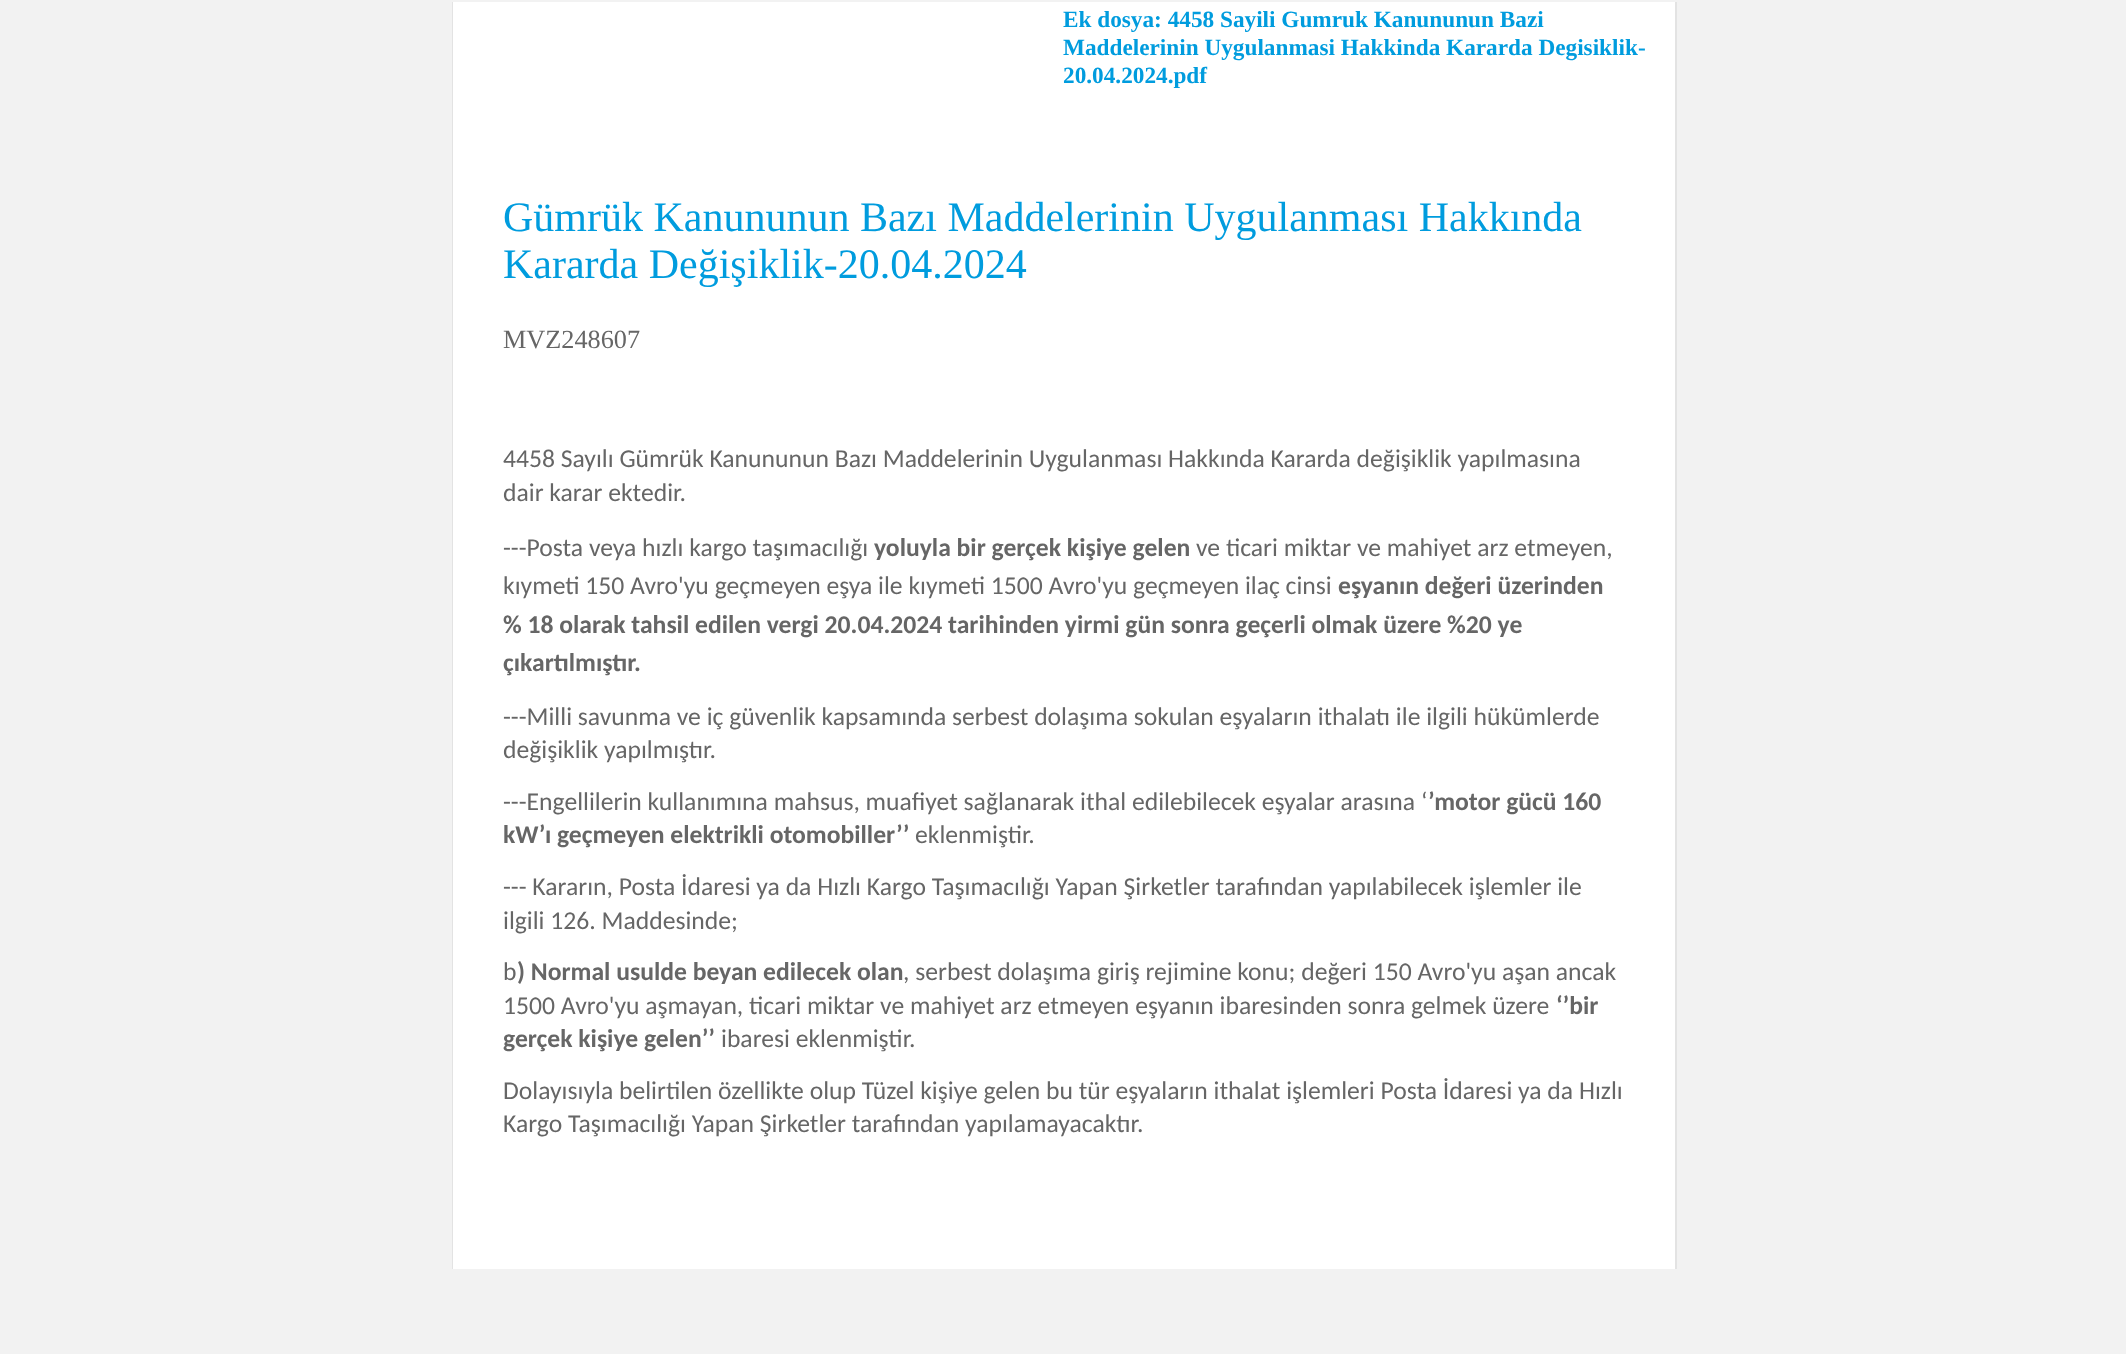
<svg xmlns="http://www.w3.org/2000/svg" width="2126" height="1354">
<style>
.a{font:bold 23.25px Liberation Serif;fill:#009cde}
.b{font:42px Liberation Serif;fill:#009cde}
.c{font:26.25px Liberation Serif;fill:#666}
.d{font:25.65px Carlito;fill:#666}
.e{font:bold 25.65px Carlito;fill:#666}
</style>
<rect width="100%" height="100%" fill="#f2f2f2"/>
<path fill="#e3e3e3" d="M452 2h2v2H452z"/>
<path fill="#fff" d="M453 2h1222v1267H453z"/>
<path fill="#e3e3e3" d="M1675 2h2v1267H1675z"/>
<path fill="#e3e3e3" d="M452 4h1v1265H452z"/>
<text class="a" x="1063" y="27">Ek dosya: 4458 Sayili Gumruk Kanununun Bazi</text>
<text class="a" x="1063" y="55">Maddelerinin Uygulanmasi Hakkinda Kararda Degisiklik-</text>
<text class="a" x="1063" y="83">20.04.2024.pdf</text>
<text class="b" x="503" y="231">Gümrük Kanununun Bazı Maddelerinin Uygulanması Hakkında</text>
<text class="b" x="503" y="278">Kararda Değişiklik-20.04.2024</text>
<text class="c" x="503" y="348">MVZ248607</text>
<text class="d" x="503" y="467">4458 Sayılı Gümrük Kanununun Bazı Maddelerinin Uygulanması Hakkında Kararda değişiklik yapılmasına</text>
<text class="d" x="503" y="501">dair karar ektedir.</text>
<text class="d" x="503" y="556">---Posta veya hızlı kargo taşımacılığı</text>
<text class="e" x="874" y="556">yoluyla bir gerçek kişiye gelen</text>
<text class="d" x="1196" y="556">ve ticari miktar ve mahiyet arz etmeyen,</text>
<text class="d" x="503" y="594">kıymeti 150 Avro'yu geçmeyen eşya ile kıymeti 1500 Avro'yu geçmeyen ilaç cinsi</text>
<text class="e" x="1338" y="594">eşyanın değeri üzerinden</text>
<text class="e" x="503" y="633">% 18 olarak tahsil edilen vergi 20.04.2024 tarihinden yirmi gün sonra geçerli olmak üzere %20 ye</text>
<text class="e" x="503" y="671">çıkartılmıştır.</text>
<text class="d" x="503" y="725">---Milli savunma ve iç güvenlik kapsamında serbest dolaşıma sokulan eşyaların ithalatı ile ilgili hükümlerde</text>
<text class="d" x="503" y="758">değişiklik yapılmıştır.</text>
<text class="d" x="503" y="810">---Engellilerin kullanımına mahsus, muafiyet sağlanarak ithal edilebilecek eşyalar arasına ‘</text>
<text class="e" x="1428" y="810">’motor gücü 160</text>
<text class="e" x="503" y="843">kW’ı geçmeyen elektrikli otomobiller’’</text>
<text class="d" x="915" y="843">eklenmiştir.</text>
<text class="d" x="503" y="895">--- Kararın, Posta İdaresi ya da Hızlı Kargo Taşımacılığı Yapan Şirketler tarafından yapılabilecek işlemler ile</text>
<text class="d" x="503" y="929">ilgili 126. Maddesinde;</text>
<text class="d" x="503" y="980">b</text>
<text class="e" x="517" y="980">) Normal usulde beyan edilecek olan</text>
<text class="d" x="903" y="980">, serbest dolaşıma giriş rejimine konu; değeri 150 Avro'yu aşan ancak</text>
<text class="d" x="503" y="1014">1500 Avro'yu aşmayan, ticari miktar ve mahiyet arz etmeyen eşyanın ibaresinden sonra gelmek üzere</text>
<text class="e" x="1556" y="1014">‘’bir</text>
<text class="e" x="503" y="1047">gerçek kişiye gelen’’</text>
<text class="d" x="721" y="1047">ibaresi eklenmiştir.</text>
<text class="d" x="503" y="1099">Dolayısıyla belirtilen özellikte olup Tüzel kişiye gelen bu tür eşyaların ithalat işlemleri Posta İdaresi ya da Hızlı</text>
<text class="d" x="503" y="1132">Kargo Taşımacılığı Yapan Şirketler tarafından yapılamayacaktır.</text>
</svg>
